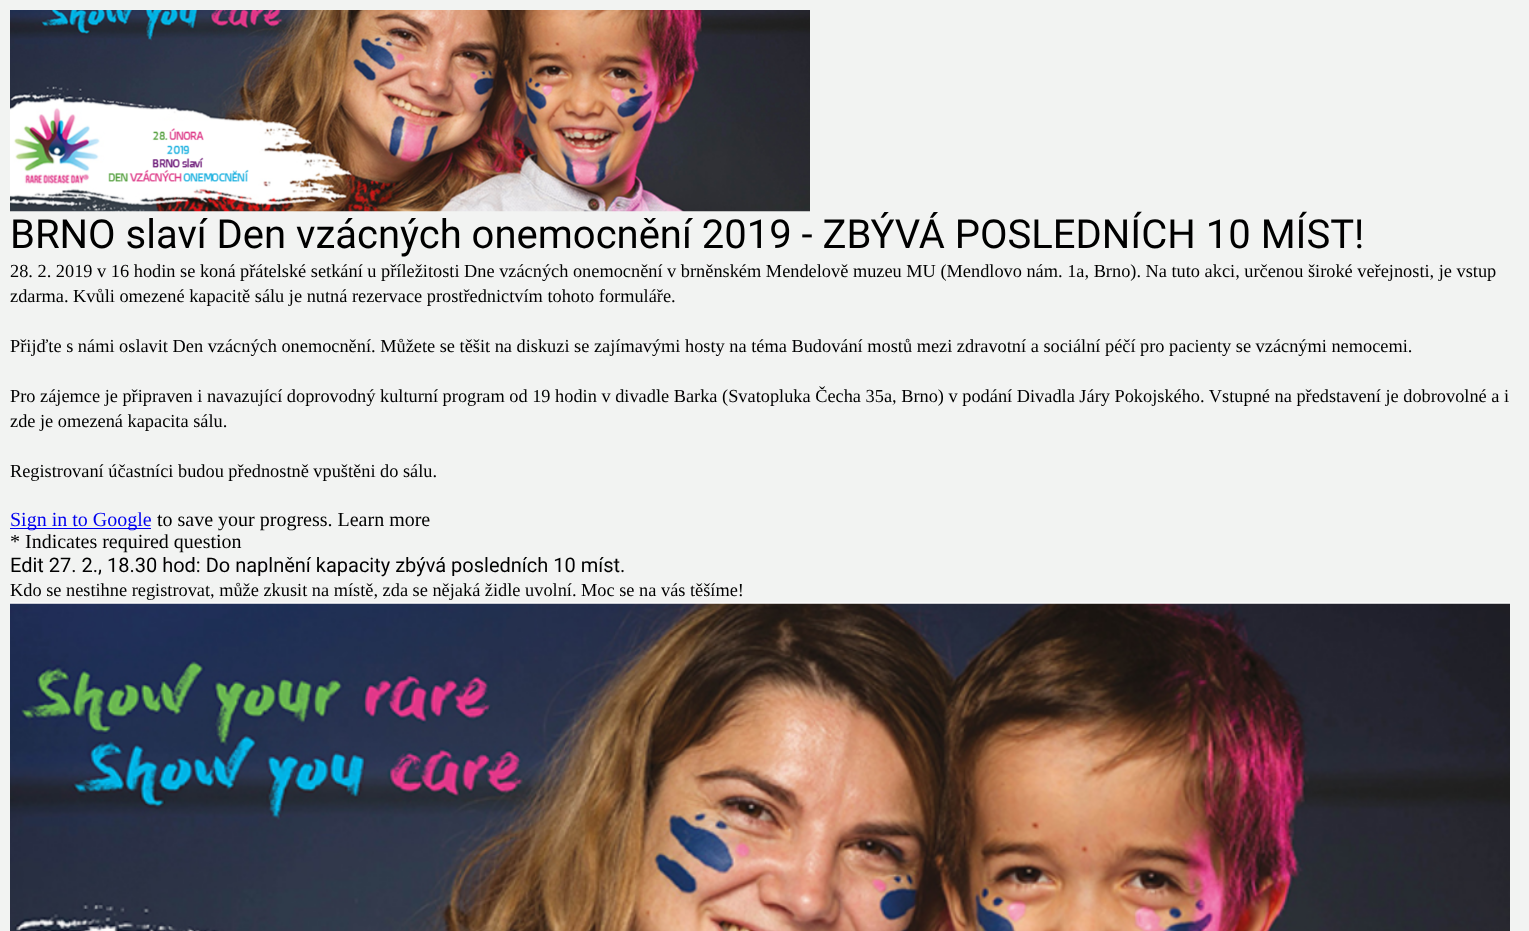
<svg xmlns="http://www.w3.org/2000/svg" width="1529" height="931">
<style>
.a{font:40px Roboto;fill:#000}
.b{font:18.33px Liberation Serif;fill:#000}
.c{font:20px Liberation Serif;fill:#00e}
.d{font:20px Liberation Serif;fill:#000}
.e{font:20px Roboto;fill:#000}
</style>
<rect width="100%" height="100%" fill="#f2f3f2"/>
<image href="1.png" x="10" y="10" width="800" height="202"/>
<path fill="#00e" d="M10 528h141v1H10z"/>
<image href="2.png" x="10" y="602" width="1500" height="329"/>
<text class="a" x="10" y="248">BRNO slaví Den vzácných onemocnění 2019 - ZBÝVÁ POSLEDNÍCH 10 MÍST!</text>
<text class="b" x="10" y="277">28. 2. 2019 v 16 hodin se koná přátelské setkání u příležitosti Dne vzácných onemocnění v brněnském Mendelově muzeu MU (Mendlovo nám. 1a, Brno). Na tuto akci, určenou široké veřejnosti, je vstup</text>
<text class="b" x="10" y="302">zdarma. Kvůli omezené kapacitě sálu je nutná rezervace prostřednictvím tohoto formuláře.</text>
<text class="b" x="10" y="352">Přijďte s námi oslavit Den vzácných onemocnění. Můžete se těšit na diskuzi se zajímavými hosty na téma Budování mostů mezi zdravotní a sociální péčí pro pacienty se vzácnými nemocemi.</text>
<text class="b" x="10" y="402">Pro zájemce je připraven i navazující doprovodný kulturní program od 19 hodin v divadle Barka (Svatopluka Čecha 35a, Brno) v podání Divadla Járy Pokojského. Vstupné na představení je dobrovolné a i</text>
<text class="b" x="10" y="427">zde je omezená kapacita sálu.</text>
<text class="b" x="10" y="477">Registrovaní účastníci budou přednostně vpuštěni do sálu.</text>
<text class="c" x="10" y="526">Sign in to Google</text>
<text class="d" x="157" y="526">to save your progress. Learn more</text>
<text class="d" x="10" y="548">* Indicates required question</text>
<text class="e" x="10" y="572">Edit 27. 2., 18.30 hod: Do naplnění kapacity zbývá posledních 10 míst.</text>
<text class="b" x="10" y="596">Kdo se nestihne registrovat, může zkusit na místě, zda se nějaká židle uvolní. Moc se na vás těšíme!</text>
</svg>
